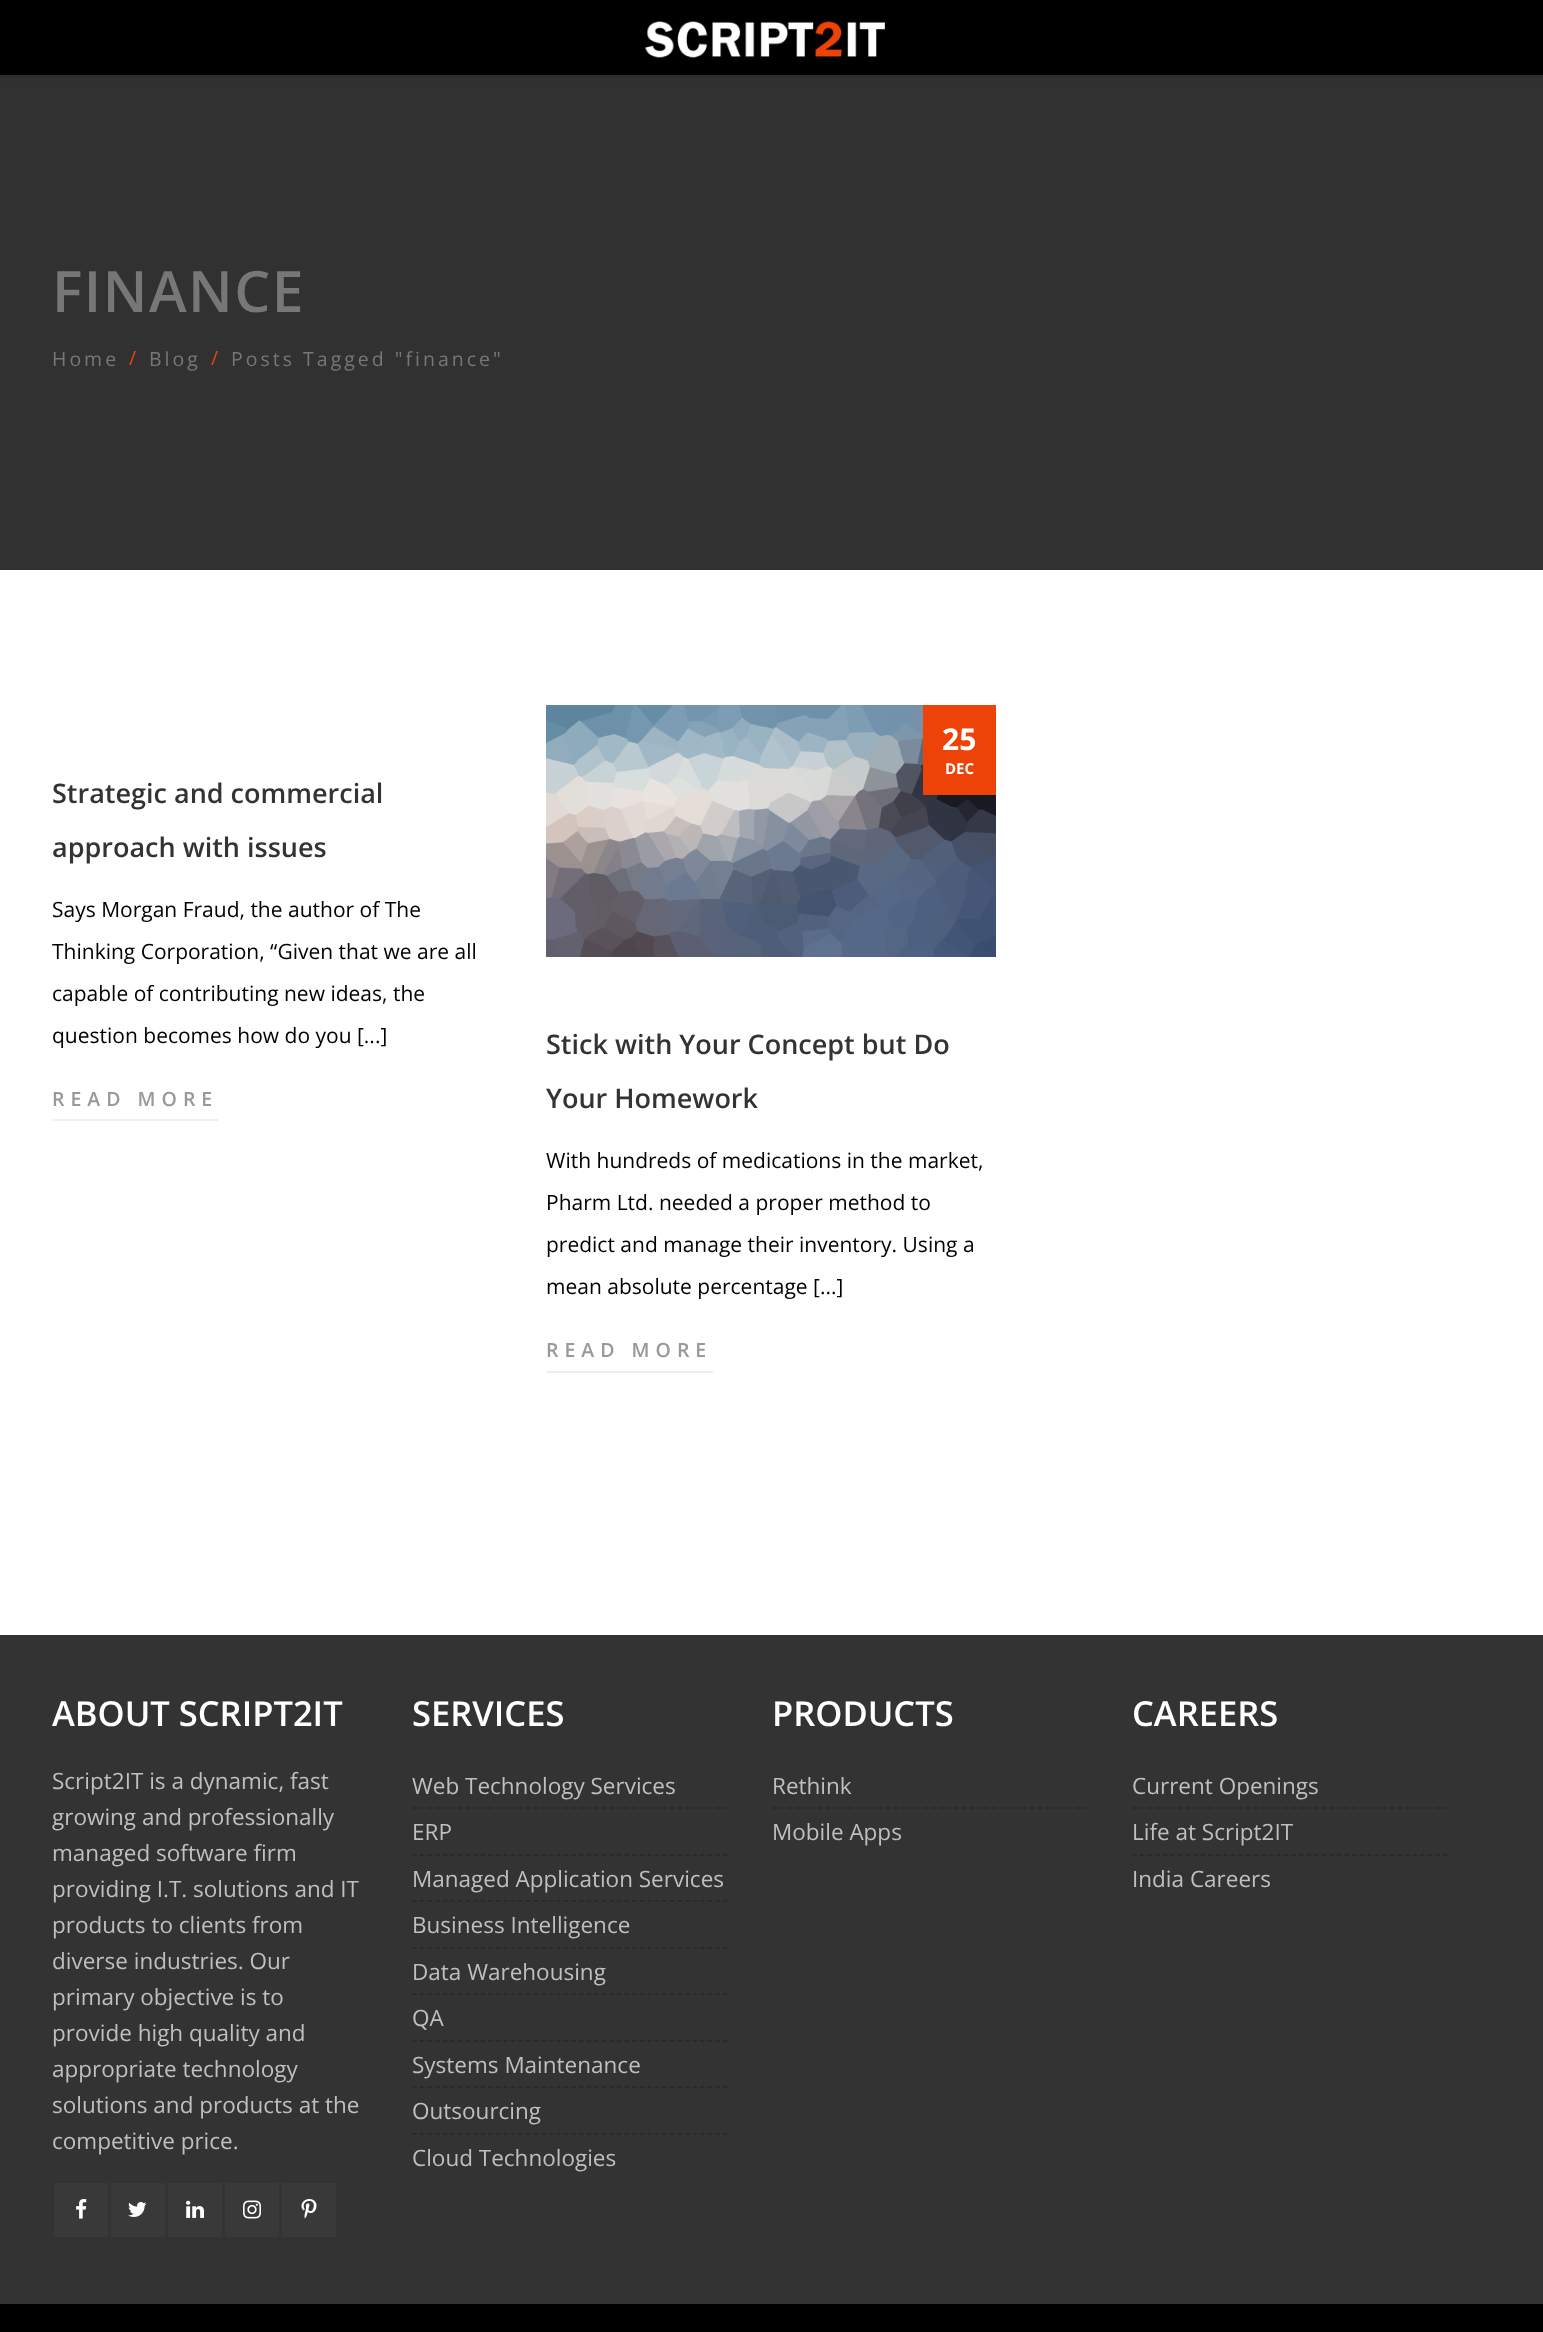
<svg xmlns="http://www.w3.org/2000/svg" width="1543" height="2332">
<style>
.a{font:600 57px Open Sans;letter-spacing:1.5px;fill:#777}
.b{font:19.5px Open Sans;letter-spacing:3px;fill:#777}
.c{font:19.5px Open Sans;letter-spacing:3px;fill:#ed4308}
.d{font:600 27px Open Sans;fill:#333}
.e{font:21px Open Sans;fill:#000}
.f{font:600 19.5px Open Sans;letter-spacing:6px;fill:#999}
.g{font:bold 30px Open Sans;fill:#fff}
.h{font:bold 15px Open Sans;fill:#fff}
.i{font:600 34.5px Open Sans;fill:#fff}
.j{font:22.5px Open Sans;fill:#bfbfbf}
</style>
<rect width="100%" height="100%" fill="#fff"/>
<path fill="#313131" d="M0 75h1543v495H0z"/>
<path fill="#0000001c" filter="blur(2px)" d="M0 2h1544v75H0z"/>
<path fill="#000" d="M0 0h1543v75H0z"/>
<image href="1.png" x="644" y="21" width="241" height="37"/>
<path fill="#eee" d="M53 1119h165v2H53z"/>
<image href="2.png" x="546" y="705" width="450" height="252"/>
<path fill="#ed4308" d="M923 705h73v90H923z"/>
<path fill="#eee" d="M546 1371h167v2H546z"/>
<path fill="#333" d="M0 1635h1543v669H0z"/>
<path fill="#39393a" d="M54 2183h54v54H54z"/>
<image href="3.png" x="76" y="2199" width="11" height="20"/>
<path fill="#39393a" d="M111 2183h54v54H111z"/>
<image href="4.png" x="128" y="2202" width="19" height="15"/>
<path fill="#39393a" d="M168 2183h54v54H168z"/>
<image href="5.png" x="186" y="2200" width="18" height="18"/>
<path fill="#39393a" d="M225 2183h54v54H225z"/>
<image href="6.png" x="243" y="2200" width="18" height="19"/>
<path fill="#39393a" d="M282 2183h54v54H282z"/>
<image href="7.png" x="301" y="2199" width="16" height="20"/>
<path fill="none" stroke="#282828" stroke-width="1.5" stroke-dasharray="4.5 3.07" d="M412.5 1808h315"/>
<path fill="none" stroke="#282828" stroke-width="1.5" stroke-dasharray="4.5 3.07" d="M412.5 1855h315"/>
<path fill="none" stroke="#282828" stroke-width="1.5" stroke-dasharray="4.5 3.07" d="M412.5 1901h315"/>
<path fill="none" stroke="#282828" stroke-width="1.5" stroke-dasharray="4.5 3.07" d="M412.5 1948h315"/>
<path fill="none" stroke="#282828" stroke-width="1.5" stroke-dasharray="4.5 3.07" d="M412.5 1994h315"/>
<path fill="none" stroke="#282828" stroke-width="1.5" stroke-dasharray="4.5 3.07" d="M412.5 2041h315"/>
<path fill="none" stroke="#282828" stroke-width="1.5" stroke-dasharray="4.5 3.07" d="M412.5 2087h315"/>
<path fill="none" stroke="#282828" stroke-width="1.5" stroke-dasharray="4.5 3.07" d="M412.5 2134h315"/>
<path fill="none" stroke="#282828" stroke-width="1.5" stroke-dasharray="4.5 3.07" d="M772.5 1808h315"/>
<path fill="none" stroke="#282828" stroke-width="1.5" stroke-dasharray="4.5 3.07" d="M1132.5 1808h315"/>
<path fill="none" stroke="#282828" stroke-width="1.5" stroke-dasharray="4.5 3.07" d="M1132.5 1855h315"/>
<path fill="#000" d="M0 2304h1543v28H0z"/>
<text class="a" x="52" y="312">FINANCE</text>
<text class="b" x="52" y="366">Home</text>
<text class="c" x="129" y="365">/</text>
<text class="b" x="149" y="366">Blog</text>
<text class="c" x="211" y="365">/</text>
<text class="b" x="231" y="366">Posts Tagged "finance"</text>
<text class="d" x="52" y="803">Strategic and commercial</text>
<text class="d" x="52" y="857">approach with issues</text>
<text class="e" x="52" y="917">Says Morgan Fraud, the author of The</text>
<text class="e" x="52" y="959">Thinking Corporation, “Given that we are all</text>
<text class="e" x="52" y="1001">capable of contributing new ideas, the</text>
<text class="e" x="52" y="1043">question becomes how do you [...]</text>
<text class="f" x="52" y="1106">READ MORE</text>
<text class="g" x="942" y="750">25</text>
<text class="h" x="945" y="774">DEC</text>
<text class="d" x="546" y="1054">Stick with Your Concept but Do</text>
<text class="d" x="546" y="1108">Your Homework</text>
<text class="e" x="546" y="1168">With hundreds of medications in the market,</text>
<text class="e" x="546" y="1210">Pharm Ltd. needed a proper method to</text>
<text class="e" x="546" y="1252">predict and manage their inventory. Using a</text>
<text class="e" x="546" y="1294">mean absolute percentage [...]</text>
<text class="f" x="546" y="1357">READ MORE</text>
<text class="i" x="52" y="1726">ABOUT SCRIPT2IT</text>
<text class="j" x="52" y="1789">Script2IT is a dynamic, fast</text>
<text class="j" x="52" y="1825">growing and professionally</text>
<text class="j" x="52" y="1861">managed software firm</text>
<text class="j" x="52" y="1897">providing I.T. solutions and IT</text>
<text class="j" x="52" y="1933">products to clients from</text>
<text class="j" x="52" y="1969">diverse industries. Our</text>
<text class="j" x="52" y="2005">primary objective is to</text>
<text class="j" x="52" y="2041">provide high quality and</text>
<text class="j" x="52" y="2077">appropriate technology</text>
<text class="j" x="52" y="2113">solutions and products at the</text>
<text class="j" x="52" y="2149">competitive price.</text>
<text class="i" x="412" y="1726">SERVICES</text>
<text class="j" x="412" y="1794">Web Technology Services</text>
<text class="j" x="412" y="1840">ERP</text>
<text class="j" x="412" y="1887">Managed Application Services</text>
<text class="j" x="412" y="1933">Business Intelligence</text>
<text class="j" x="412" y="1980">Data Warehousing</text>
<text class="j" x="412" y="2026">QA</text>
<text class="j" x="412" y="2073">Systems Maintenance</text>
<text class="j" x="412" y="2119">Outsourcing</text>
<text class="j" x="412" y="2166">Cloud Technologies</text>
<text class="i" x="772" y="1726">PRODUCTS</text>
<text class="j" x="772" y="1794">Rethink</text>
<text class="j" x="772" y="1840">Mobile Apps</text>
<text class="i" x="1132" y="1726">CAREERS</text>
<text class="j" x="1132" y="1794">Current Openings</text>
<text class="j" x="1132" y="1840">Life at Script2IT</text>
<text class="j" x="1132" y="1887">India Careers</text>
</svg>
